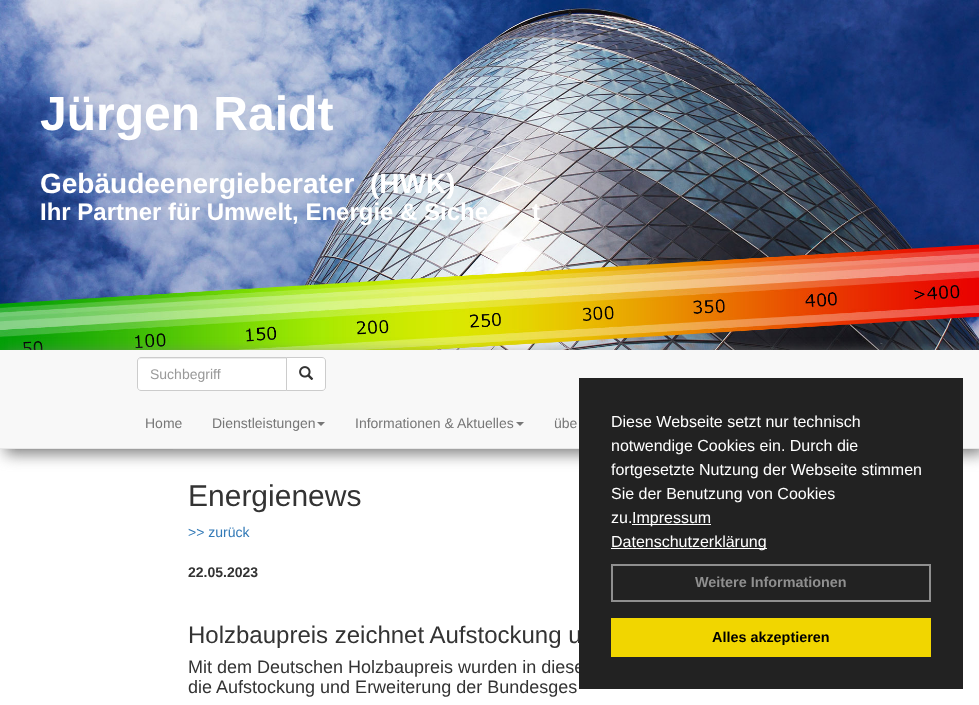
<svg xmlns="http://www.w3.org/2000/svg" width="979" height="705">
<style>
.a{font:bold 48px Liberation Sans;fill:#fff}
.b{font:bold 28px Liberation Sans;fill:#fff}
.c{font:bold 24px Liberation Sans;fill:#fff}
.d{font:14px Liberation Sans;fill:#999}
.e{font:14px Liberation Sans;fill:#777}
.f{font:30px Liberation Sans;fill:#333}
.g{font:14px Liberation Sans;fill:#337ab7}
.h{font:bold 14px Liberation Sans;fill:#333}
.i{font:24px Liberation Sans;fill:#333}
.j{font:18px Liberation Sans;fill:#333}
.k{font:16px Liberation Sans;fill:#fff}
.l{font:bold 14.4px Liberation Sans;fill:#8f8f8f}
.m{font:bold 14.4px Liberation Sans;fill:#000}
</style>
<rect width="100%" height="100%" fill="#fff"/>
<image href="1.png" x="0" y="0" width="979" height="350"/>
<path fill="#f0f0f0" d="M15 449h158v1H15z"/>
<path fill="#808080" filter="blur(7.5px)" d="M5 355h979v99H5z"/>
<path fill="#f8f8f8" d="M0 350h979v98H0z"/>
<path fill="#e7e7e7" d="M0 448h979v1H0z"/>
<path fill="#fff" d="M141 357h146v34h-146c-2 0-4-2-4-4v-26c0-2 2-4 4-4z"/>
<path fill="#ececec" d="M141 359h145v-1h-145c-2 0-3 2-3 4c0-2 1-3 3-3z"/>
<path fill="none" stroke="#ccc" d="M141 357.5h145.5v33h-145.5c-2 0-3.5-1.5-3.5-3.5v-26c0-2 1.5-3.5 3.5-3.5z"/>
<path fill="#fff" stroke="#ccc" d="M286.5 357.5h35.5c2 0 3.5 1.5 3.5 3.5v26c0 2-1.5 3.5-3.5 3.5h-35.5z"/>
<image href="2.png" x="299" y="366" width="15" height="14"/>
<path fill="#777" d="M317 422h8l-4 4z"/>
<path fill="#777" d="M516 422h8l-4 4z"/>
<text class="a" x="40" y="130">Jürgen Raidt</text>
<text class="b" xml:space="preserve" x="40" y="193">Gebäudeenergieberater  (HWK)</text>
<text class="c" x="40" y="220">Ihr Partner für Umwelt, Energie &amp; Siche</text>
<text class="c" x="532" y="220">t</text>
<text class="d" x="150" y="379">Suchbegriff</text>
<text class="e" x="145" y="428">Home</text>
<text class="e" x="212" y="428">Dienstleistungen</text>
<text class="e" x="355" y="428">Informationen &amp; Aktuelles</text>
<text class="e" x="554" y="428">übe</text>
<text class="f" x="188" y="506">Energienews</text>
<text class="g" x="188" y="537">&gt;&gt; zurück</text>
<text class="h" x="188" y="577">22.05.2023</text>
<text class="i" x="188" y="643">Holzbaupreis zeichnet Aufstockung u</text>
<text class="j" x="188" y="673">Mit dem Deutschen Holzbaupreis wurden in diese</text>
<text class="j" x="188" y="693">die Aufstockung und Erweiterung der Bundesges</text>
<path fill="#222" d="M579 378h384v311H579z"/>
<text class="k" x="611" y="427">Diese Webseite setzt nur technisch</text>
<text class="k" x="611" y="451">notwendige Cookies ein. Durch die</text>
<text class="k" x="611" y="475">fortgesetzte Nutzung der Webseite stimmen</text>
<text class="k" x="611" y="499">Sie der Benutzung von Cookies</text>
<text class="k" x="611" y="523">zu.</text>
<path fill="#fff" d="M632 524h79v1H632z"/>
<text class="k" x="632" y="523">Impressum</text>
<path fill="#fff" d="M611 548h156v1H611z"/>
<text class="k" x="611" y="547">Datenschutzerklärung</text>
<path fill="none" stroke="#8f8f8f" stroke-width="2" d="M612 565h318v36H612z"/>
<text class="l" x="695" y="587">Weitere Informationen</text>
<path fill="#f1d600" d="M611 618h320v39H611z"/>
<text class="m" x="712" y="642">Alles akzeptieren</text>
</svg>
